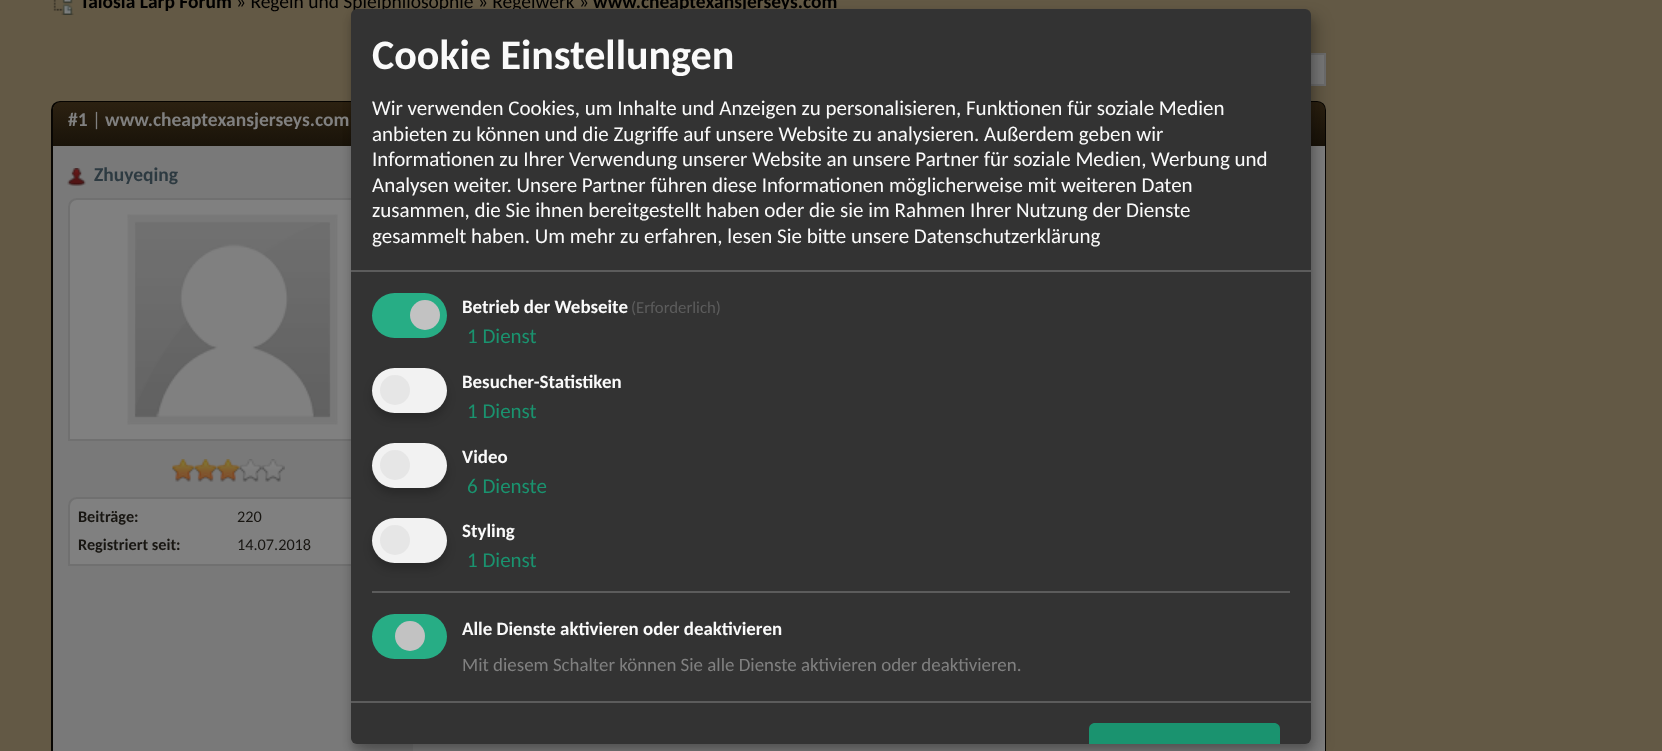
<svg xmlns="http://www.w3.org/2000/svg" width="1662" height="751">
<style>
.a{font:bold 19.5px Carlito;fill:#000}
.b{font:19.5px Carlito;fill:#000}
.c{font:bold 19.5px Carlito;fill:#808080}
.d{font:19.5px Carlito;fill:#808080}
.e{font:bold 19.5px Carlito;fill:#2d3a41}
.f{font:bold 16.25px Carlito;fill:#181612}
.g{font:16.25px Carlito;fill:#181612}
.h{font:bold 42px Carlito;fill:#fafafa}
.i{font:21px Carlito;fill:#fafafa}
.j{font:bold 18.9px Carlito;fill:#fafafa}
.k{font:16.75px Carlito;fill:#5c5c5c}
.l{font:21px Carlito;fill:#1a936f}
.m{font:18.9px Carlito;fill:#808080}
</style>
<defs>
<linearGradient id="g1" gradientUnits="userSpaceOnUse" x1="53" y1="102" x2="53" y2="146"><stop offset="0" stop-color="#2c2111"/><stop offset="1" stop-color="#191309"/></linearGradient>
</defs>
<rect width="100%" height="100%" fill="#635945"/>
<image href="1.png" x="53" y="0" width="21" height="15"/>
<path fill="#797979" d="M1311 55h13v29H1311z"/>
<path fill="none" stroke="#6c6c6c" stroke-width="2" d="M723 54h602v31H723z"/>
<path fill="none" stroke="#070502" stroke-width="2" d="M60 102h1257c4.5 0 8 3.5 8 8v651h-1273v-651c0-4.5 3.5-8 8-8z"/>
<path fill="url(#g1)" d="M61 102h1256c4.5 0 8 3.5 8 8v36h-1272v-36c0-4.5 3.5-8 8-8z"/>
<path fill="#808080" d="M413 146h912v605H413z"/>
<path fill="#797979" d="M53 146h360v605H53z"/>
<image href="2.png" x="67" y="168" width="19" height="18"/>
<path fill="#808080" stroke="#707070" stroke-width="2" d="M77 199h312c4.5 0 8 3.5 8 8v233h-328v-233c0-4.5 3.5-8 8-8z"/>
<image href="3.png" x="127" y="214" width="211" height="211"/>
<image href="4.png" x="172" y="459" width="113" height="23"/>
<path fill="#808080" stroke="#707070" stroke-width="2" d="M77 498h312c4.5 0 8 3.5 8 8v59h-328v-59c0-4.5 3.5-8 8-8z"/>
<rect fill="#00000030" filter="blur(7.5px)" x="359" y="17" width="960" height="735" rx="6"/>
<rect fill="#00000033" filter="blur(4.5px)" x="351" y="15" width="960" height="735" rx="6"/>
<text class="a" x="80" y="8">Talosia Larp Forum</text>
<text class="b" x="236" y="8">» Regeln und Spielphilosophie » Regelwerk »</text>
<text class="a" x="593" y="8">www.cheaptexansjerseys.com</text>
<text class="c" x="68" y="126">#1</text>
<text class="d" x="92" y="126">|</text>
<text class="c" x="105" y="126">www.cheaptexansjerseys.com</text>
<text class="e" x="94" y="181">Zhuyeqing</text>
<text class="f" x="78" y="522">Beiträge:</text>
<text class="g" x="237" y="522">220</text>
<text class="f" x="78" y="550">Registriert seit:</text>
<text class="g" x="237" y="550">14.07.2018</text>
<rect fill="#333" x="351" y="9" width="960" height="735" rx="6"/>
<path fill="#5c5c5c" d="M351 270h960v2H351z"/>
<text class="h" x="372" y="69">Cookie Einstellungen</text>
<text class="i" x="372" y="115">Wir verwenden Cookies, um Inhalte und Anzeigen zu personalisieren, Funktionen für soziale Medien</text>
<text class="i" x="372" y="141">anbieten zu können und die Zugriffe auf unsere Website zu analysieren. Außerdem geben wir</text>
<text class="i" x="372" y="166">Informationen zu Ihrer Verwendung unserer Website an unsere Partner für soziale Medien, Werbung und</text>
<text class="i" x="372" y="192">Analysen weiter. Unsere Partner führen diese Informationen möglicherweise mit weiteren Daten</text>
<text class="i" x="372" y="217">zusammen, die Sie ihnen bereitgestellt haben oder die sie im Rahmen Ihrer Nutzung der Dienste</text>
<text class="i" x="372" y="243">gesammelt haben. Um mehr zu erfahren, lesen Sie bitte unsere Datenschutzerklärung</text>
<rect fill="#27ad85" x="372" y="293" width="75" height="45" rx="22.5"/>
<circle fill="#c2c2c2" cx="425" cy="315" r="15"/>
<text class="j" x="462" y="313">Betrieb der Webseite</text>
<text class="k" x="631" y="313">(Erforderlich)</text>
<text class="l" x="467" y="343">1 Dienst</text>
<rect fill="#00000033" filter="blur(4.5px)" x="372" y="374" width="75" height="45" rx="22.5"/>
<rect fill="#f2f2f2" x="372" y="368" width="75" height="45" rx="22.5"/>
<circle fill="#e6e6e6" cx="395" cy="390" r="15"/>
<text class="j" x="462" y="388">Besucher-Statistiken</text>
<text class="l" x="467" y="418">1 Dienst</text>
<rect fill="#00000033" filter="blur(4.5px)" x="372" y="449" width="75" height="45" rx="22.5"/>
<rect fill="#f2f2f2" x="372" y="443" width="75" height="45" rx="22.5"/>
<circle fill="#e6e6e6" cx="395" cy="465" r="15"/>
<text class="j" x="462" y="463">Video</text>
<text class="l" x="467" y="493">6 Dienste</text>
<rect fill="#00000033" filter="blur(4.5px)" x="372" y="524" width="75" height="45" rx="22.5"/>
<rect fill="#f2f2f2" x="372" y="518" width="75" height="45" rx="22.5"/>
<circle fill="#e6e6e6" cx="395" cy="540" r="15"/>
<text class="j" x="462" y="537">Styling</text>
<text class="l" x="467" y="567">1 Dienst</text>
<path fill="#5c5c5c" d="M372 591h918v2H372z"/>
<rect fill="#27ad85" x="372" y="614" width="75" height="45" rx="22.5"/>
<circle fill="#c2c2c2" cx="410" cy="636" r="15"/>
<text class="j" x="462" y="635">Alle Dienste aktivieren oder deaktivieren</text>
<text class="m" x="462" y="671">Mit diesem Schalter können Sie alle Dienste aktivieren oder deaktivieren.</text>
<path fill="#5c5c5c" d="M351 701h960v2H351z"/>
<path fill="#1a936f" d="M1095 723h179c3.5 0 6 2.5 6 6v15h-191v-15c0-3.5 2.5-6 6-6z"/>
</svg>
